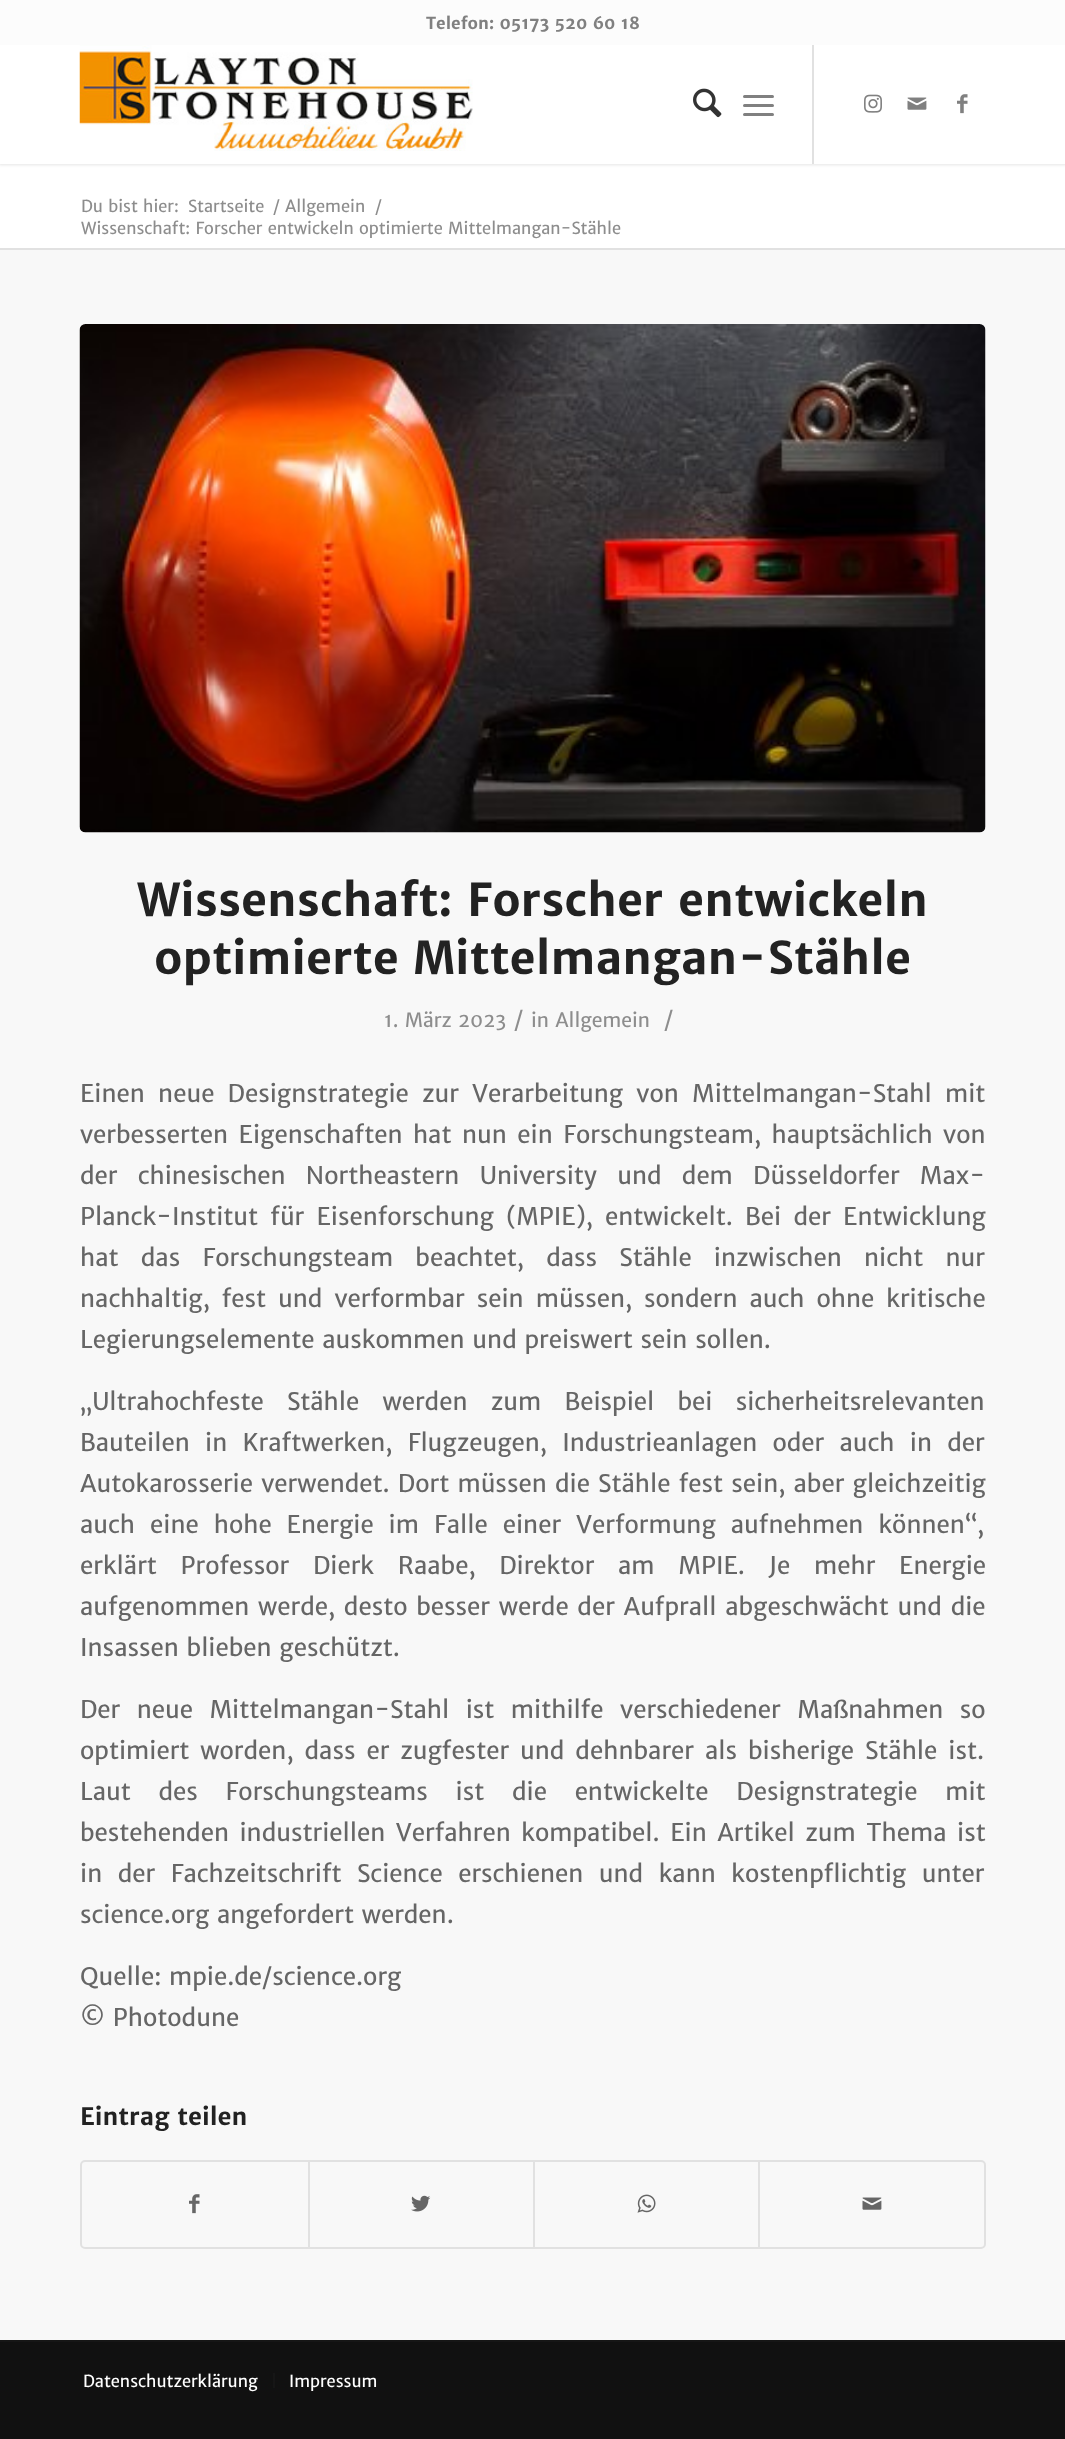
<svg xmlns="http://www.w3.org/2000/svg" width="1065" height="2439">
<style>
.a{font:bold 16.5px Merriweather Sans;fill:#808080}
.b{font:16.5px Merriweather Sans;fill:#8d8d8d}
.c{font:bold 45px Merriweather Sans;fill:#222}
.d{font:19.5px Merriweather Sans;fill:#8d8d8d}
.e{font:22px Merriweather Sans;fill:#8d8d8d}
.f{font:24.15px Merriweather Sans;fill:#666}
.g{font:bold 24px Merriweather Sans;fill:#222}
.h{font:16.5px Merriweather Sans;fill:#fff}
</style>
<rect width="100%" height="100%" fill="#111"/>
<path fill="#fff" d="M0 164h1065v84H0z"/>
<path fill="#0000001a" filter="blur(1.5px)" d="M-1 -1h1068v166H-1z"/>
<path fill="#fff" d="M0 45h1065v119H0z"/>
<path fill="#e1e1e1" d="M812 44h2v120H812z"/>
<path fill="#fcfcfc" d="M0 0h1065v45H0z"/>
<image href="1.png" x="79" y="45" width="394" height="106"/>
<image href="2.png" x="693" y="88" width="29" height="30"/>
<rect fill="#808080" x="743" y="104" width="31" height="3" rx="1.5"/>
<rect fill="#808080" x="743" y="95" width="31" height="3" rx="1.5"/>
<rect fill="#808080" x="743" y="113" width="31" height="3" rx="1.5"/>
<image href="3.png" x="864" y="94" width="18" height="19"/>
<image href="4.png" x="907" y="97" width="20" height="13"/>
<image href="5.png" x="957" y="94" width="11" height="20"/>
<path fill="#f8f8f8" d="M0 250h1065v2090H0z"/>
<path fill="#e1e1e1" d="M0 248h1065v2H0z"/>
<image href="6.png" x="79" y="324" width="907" height="509"/>
<rect fill="none" stroke="#e1e1e1" stroke-width="2" x="81" y="2161" width="904" height="87" rx="4"/>
<image href="7.png" x="189" y="2194" width="11" height="20"/>
<path fill="#e1e1e1" d="M308 2162h2v85H308z"/>
<image href="8.png" x="411" y="2195" width="20" height="17"/>
<path fill="#e1e1e1" d="M533 2162h2v85H533z"/>
<image href="9.png" x="637" y="2194" width="19" height="19"/>
<path fill="#e1e1e1" d="M758 2162h2v85H758z"/>
<image href="10.png" x="862" y="2197" width="20" height="13"/>
<path fill="#161616" d="M0 2340h1065v2H0z"/>
<path fill="#161616" d="M273 2373h2v15H273z"/>
<text class="a" x="426" y="29">Telefon: 05173 520 60 18</text>
<text class="b" x="81" y="212">Du bist hier:</text>
<text class="b" x="188" y="212">Startseite</text>
<text class="b" x="273" y="212">/</text>
<text class="b" x="285" y="212">Allgemein</text>
<text class="b" x="375" y="212">/</text>
<text class="b" x="81" y="234">Wissenschaft: Forscher entwickeln optimierte Mittelmangan-Stähle</text>
<text class="c" x="137" y="916">Wissenschaft: Forscher entwickeln</text>
<text class="c" x="154" y="974">optimierte Mittelmangan-Stähle</text>
<text class="d" x="384" y="1027">1. März 2023</text>
<text class="e" x="514" y="1027">/</text>
<text class="d" x="531" y="1027">in Allgemein</text>
<text class="e" x="664" y="1027">/</text>
<text class="f" x="80" y="1102" word-spacing="5.5">Einen neue Designstrategie zur Verarbeitung von Mittelmangan-Stahl mit</text>
<text class="f" x="80" y="1143" word-spacing="2.75">verbesserten Eigenschaften hat nun ein Forschungsteam, hauptsächlich von</text>
<text class="f" x="80" y="1184" word-spacing="12.5">der chinesischen Northeastern University und dem Düsseldorfer Max-</text>
<text class="f" x="80" y="1225" word-spacing="4.5">Planck-Institut für Eisenforschung (MPIE), entwickelt. Bei der Entwicklung</text>
<text class="f" x="80" y="1266" word-spacing="14.5">hat das Forschungsteam beachtet, dass Stähle inzwischen nicht nur</text>
<text class="f" x="80" y="1307" word-spacing="4.25">nachhaltig, fest und verformbar sein müssen, sondern auch ohne kritische</text>
<text class="f" x="80" y="1348">Legierungselemente auskommen und preiswert sein sollen.</text>
<text class="f" x="80" y="1410" word-spacing="15.5">„Ultrahochfeste Stähle werden zum Beispiel bei sicherheitsrelevanten</text>
<text class="f" x="80" y="1451" word-spacing="7.5">Bauteilen in Kraftwerken, Flugzeugen, Industrieanlagen oder auch in der</text>
<text class="f" x="80" y="1492" word-spacing="0.5">Autokarosserie verwendet. Dort müssen die Stähle fest sein, aber gleichzeitig</text>
<text class="f" x="80" y="1533" word-spacing="7.25">auch eine hohe Energie im Falle einer Verformung aufnehmen können“,</text>
<text class="f" x="80" y="1574" word-spacing="16">erklärt Professor Dierk Raabe, Direktor am MPIE. Je mehr Energie</text>
<text class="f" x="80" y="1615" word-spacing="1">aufgenommen werde, desto besser werde der Aufprall abgeschwächt und die</text>
<text class="f" x="80" y="1656">Insassen blieben geschützt.</text>
<text class="f" x="80" y="1718" word-spacing="8.75">Der neue Mittelmangan-Stahl ist mithilfe verschiedener Maßnahmen so</text>
<text class="f" x="80" y="1759" word-spacing="3.25">optimiert worden, dass er zugfester und dehnbarer als bisherige Stähle ist.</text>
<text class="f" x="80" y="1800" word-spacing="20">Laut des Forschungsteams ist die entwickelte Designstrategie mit</text>
<text class="f" x="80" y="1841" word-spacing="2.75">bestehenden industriellen Verfahren kompatibel. Ein Artikel zum Thema ist</text>
<text class="f" x="80" y="1882" word-spacing="7.75">in der Fachzeitschrift Science erschienen und kann kostenpflichtig unter</text>
<text class="f" x="80" y="1923">science.org angefordert werden.</text>
<text class="f" x="80" y="1985">Quelle: mpie.de/science.org</text>
<text class="f" x="80" y="2026">© Photodune</text>
<text class="g" x="80" y="2125">Eintrag teilen</text>
<text class="h" x="83" y="2387">Datenschutzerklärung</text>
<text class="h" x="289" y="2387">Impressum</text>
</svg>
